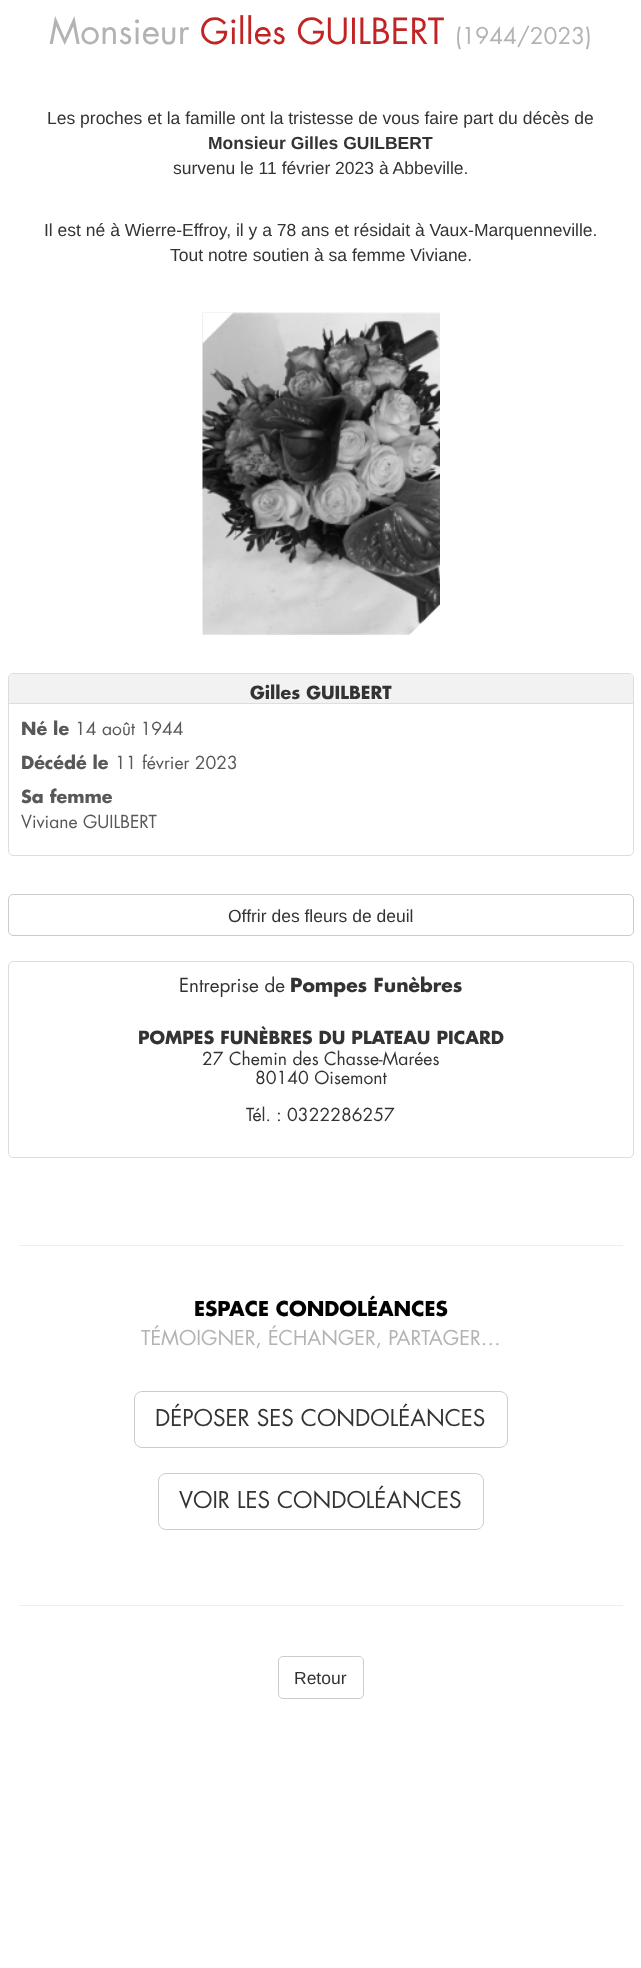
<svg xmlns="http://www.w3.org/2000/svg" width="641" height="1968">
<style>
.a{font:35px Futura;fill:#b1b3b4}
.b{font:35px Futura;fill:#c12424}
.c{font:22.5px Futura;fill:#b1b3b4}
.d{font:17.5px Liberation Sans;fill:#333}
.e{font:bold 17.5px Liberation Sans;fill:#333}
.f{font:bold 17.5px Futura;fill:#333}
.g{font:bold 17.5px Futura;fill:#58585a}
.h{font:17.5px Futura;fill:#58585a}
.i{font:18.75px Futura;fill:#333}
.j{font:bold 18.75px Futura;fill:#333}
.k{font:17.5px Futura;fill:#333}
.l{font:bold 20px Futura;fill:#000}
.m{font:20px Futura;fill:#b1b3b4}
.n{font:22.5px Futura;fill:#333}
</style>
<rect width="100%" height="100%" fill="#fff"/>
<image href="1.png" x="202" y="312" width="238" height="323"/>
<image href="2.png" x="202" y="312" width="238" height="323"/>
<rect fill="none" stroke="#ddd" x="8.5" y="673.5" width="625" height="182" rx="4.5"/>
<path fill="#f2f2f2" d="M14 674h614c3 0 5 2 5 5v25h-624v-25c0-3 2-5 5-5z"/>
<path fill="#ddd" d="M9 703h624v1H9z"/>
<rect fill="none" stroke="#ccc" x="8.5" y="894.5" width="625" height="41" rx="4.5"/>
<rect fill="none" stroke="#ddd" x="8.5" y="961.5" width="625" height="196" rx="4.5"/>
<path fill="#eee" d="M19 1245h604v1H19z"/>
<rect fill="none" stroke="#ccc" x="134.5" y="1391.5" width="373" height="56" rx="7.5"/>
<rect fill="none" stroke="#ccc" x="158.5" y="1473.5" width="325" height="56" rx="7.5"/>
<path fill="#eee" d="M19 1605h604v1H19z"/>
<rect fill="none" stroke="#ccc" x="278.5" y="1656.5" width="85" height="42" rx="4.5"/>
<text class="a" x="49" y="44">Monsieur</text>
<text class="b" x="200" y="44">Gilles GUILBERT</text>
<text class="c" x="455" y="44">(1944/2023)</text>
<text class="d" x="47" y="124">Les proches et la famille ont la tristesse de vous faire part du décès de</text>
<text class="e" x="208" y="149">Monsieur Gilles GUILBERT</text>
<text class="d" x="173" y="174">survenu le 11 février 2023 à Abbeville.</text>
<text class="d" x="44" y="236">Il est né à Wierre-Effroy, il y a 78 ans et résidait à Vaux-Marquenneville.</text>
<text class="d" x="170" y="261">Tout notre soutien à sa femme Viviane.</text>
<text class="f" x="250" y="699">Gilles GUILBERT</text>
<text class="g" x="21" y="735">Né le</text>
<text class="h" x="75" y="735">14 août 1944</text>
<text class="g" x="21" y="769">Décédé le</text>
<text class="h" x="115" y="769">11 février 2023</text>
<text class="g" x="21" y="803">Sa femme</text>
<text class="h" x="21" y="828">Viviane GUILBERT</text>
<text class="d" x="228" y="922">Offrir des fleurs de deuil</text>
<text class="i" x="179" y="992">Entreprise de</text>
<text class="j" x="290" y="992">Pompes Funèbres</text>
<text class="f" x="138" y="1044">POMPES FUNÈBRES DU PLATEAU PICARD</text>
<text class="k" x="202" y="1065">27 Chemin des Chasse-Marées</text>
<text class="k" x="255" y="1084">80140 Oisemont</text>
<text class="k" x="246" y="1121">Tél. : 0322286257</text>
<text class="l" x="194" y="1316">ESPACE CONDOLÉANCES</text>
<text class="m" x="141" y="1345">TÉMOIGNER, ÉCHANGER, PARTAGER…</text>
<text class="n" x="155" y="1426">DÉPOSER SES CONDOLÉANCES</text>
<text class="n" x="179" y="1508">VOIR LES CONDOLÉANCES</text>
<text class="d" x="294" y="1684">Retour</text>
</svg>
